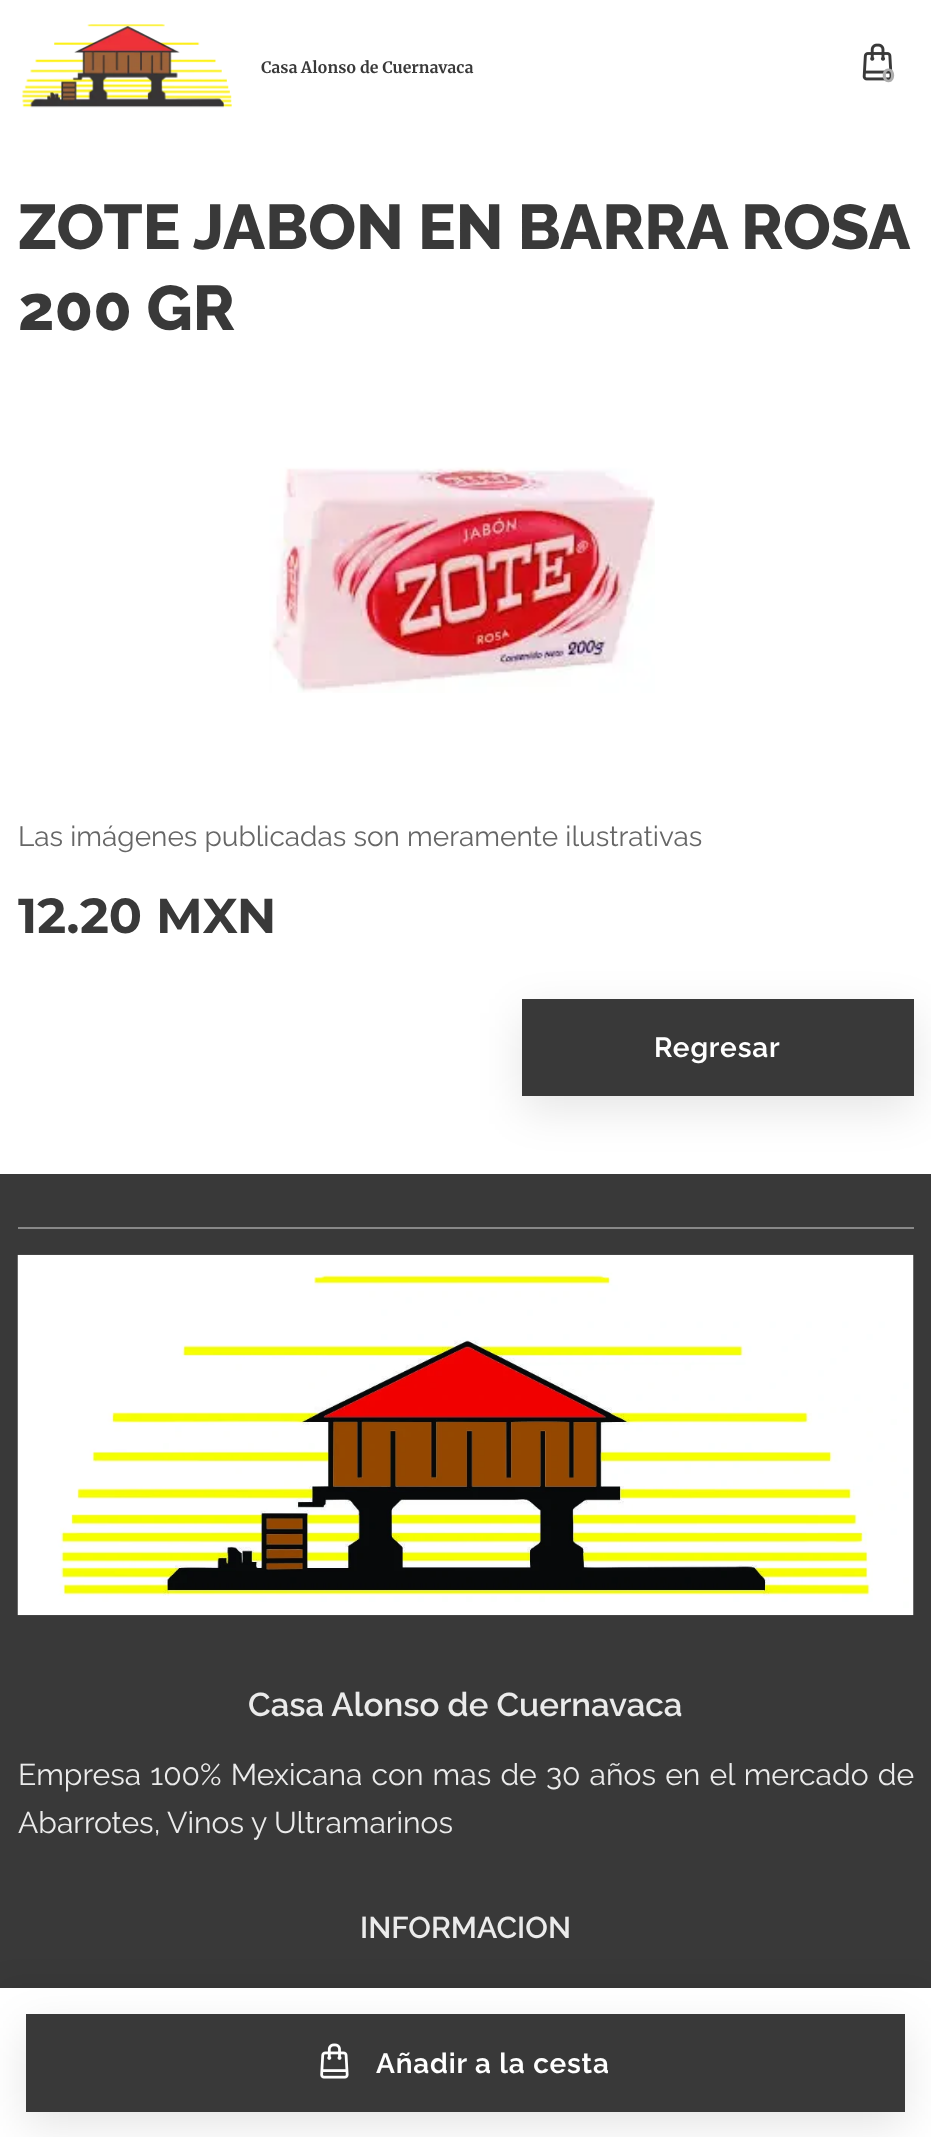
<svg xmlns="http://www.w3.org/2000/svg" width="931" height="2137">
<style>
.a{font:bold 15.75px Merriweather;fill:#393939}
.b{font:bold 19px Montserrat;fill:#adadad}
.c{font:800 63px Raleway;fill:#393939}
.d{font:28px Raleway;fill:#666}
.e{font:bold 49px Montserrat;fill:#393939}
.f{font:600 28px 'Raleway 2';letter-spacing:0.8px;fill:#fff}
.g{font:600 33.1px Raleway;fill:#ebebeb}
.h{font:30.1px Raleway;fill:#ebebeb}
.i{font:600 30.1px Raleway;fill:#ebebeb}
</style>
<defs>
<clipPath id="clip1"><path d="M18 779h896v177H18z"/></clipPath>
</defs>
<rect width="100%" height="100%" fill="#fff"/>
<image href="1.png" x="21" y="24" width="211" height="84"/>
<image href="2.png" x="862" y="43" width="31" height="38"/>
<image href="3.png" x="269" y="467" width="386" height="226"/>
<path fill="#393939" d="M0 1174h931v814H0z"/>
<path fill="#0000000f" filter="blur(13px)" d="M0 1981h931v151H0z"/>
<path fill="#fff" d="M0 1988h931v149H0z"/>
<path fill="#0000001a" filter="blur(22px)" d="M26 2028h879v98H26z"/>
<path fill="#393939" d="M26 2014h879v98H26z"/>
<image href="4.png" x="320" y="2043" width="29" height="36"/>
<path fill="#0000001a" filter="blur(22px)" d="M522 1013h392v97H522z"/>
<path fill="#393939" d="M522 999h392v97H522z"/>
<path fill="#888" d="M18 1227h896v2H18z"/>
<image href="5.png" x="17" y="1254" width="897" height="362"/>
<text class="a" x="261" y="73">Casa Alonso de Cuernavaca</text>
<text class="b" x="882" y="82">0</text>
<text class="c" x="18" y="249" word-spacing="-0.5">ZOTE JABON EN BARRA ROSA</text>
<text class="c" x="18" y="330">200 GR</text>
<text class="d" x="18" y="846">Las imágenes publicadas son meramente ilustrativas</text>
<g clip-path="url(#clip1)">
<text class="e" x="18" y="933">12.20</text>
</g>
<text class="e" x="156" y="933">MXN</text>
<text class="f" x="376" y="2073">Añadir a la cesta</text>
<text class="f" x="654" y="1057">Regresar</text>
<text class="g" x="248" y="1716">Casa Alonso de Cuernavaca</text>
<text class="h" x="18" y="1785" word-spacing="1.5">Empresa 100% Mexicana con mas de 30 años en el mercado de</text>
<text class="h" x="18" y="1833">Abarrotes, Vinos y Ultramarinos</text>
<text class="i" x="360" y="1938">INFORMACION</text>
</svg>
